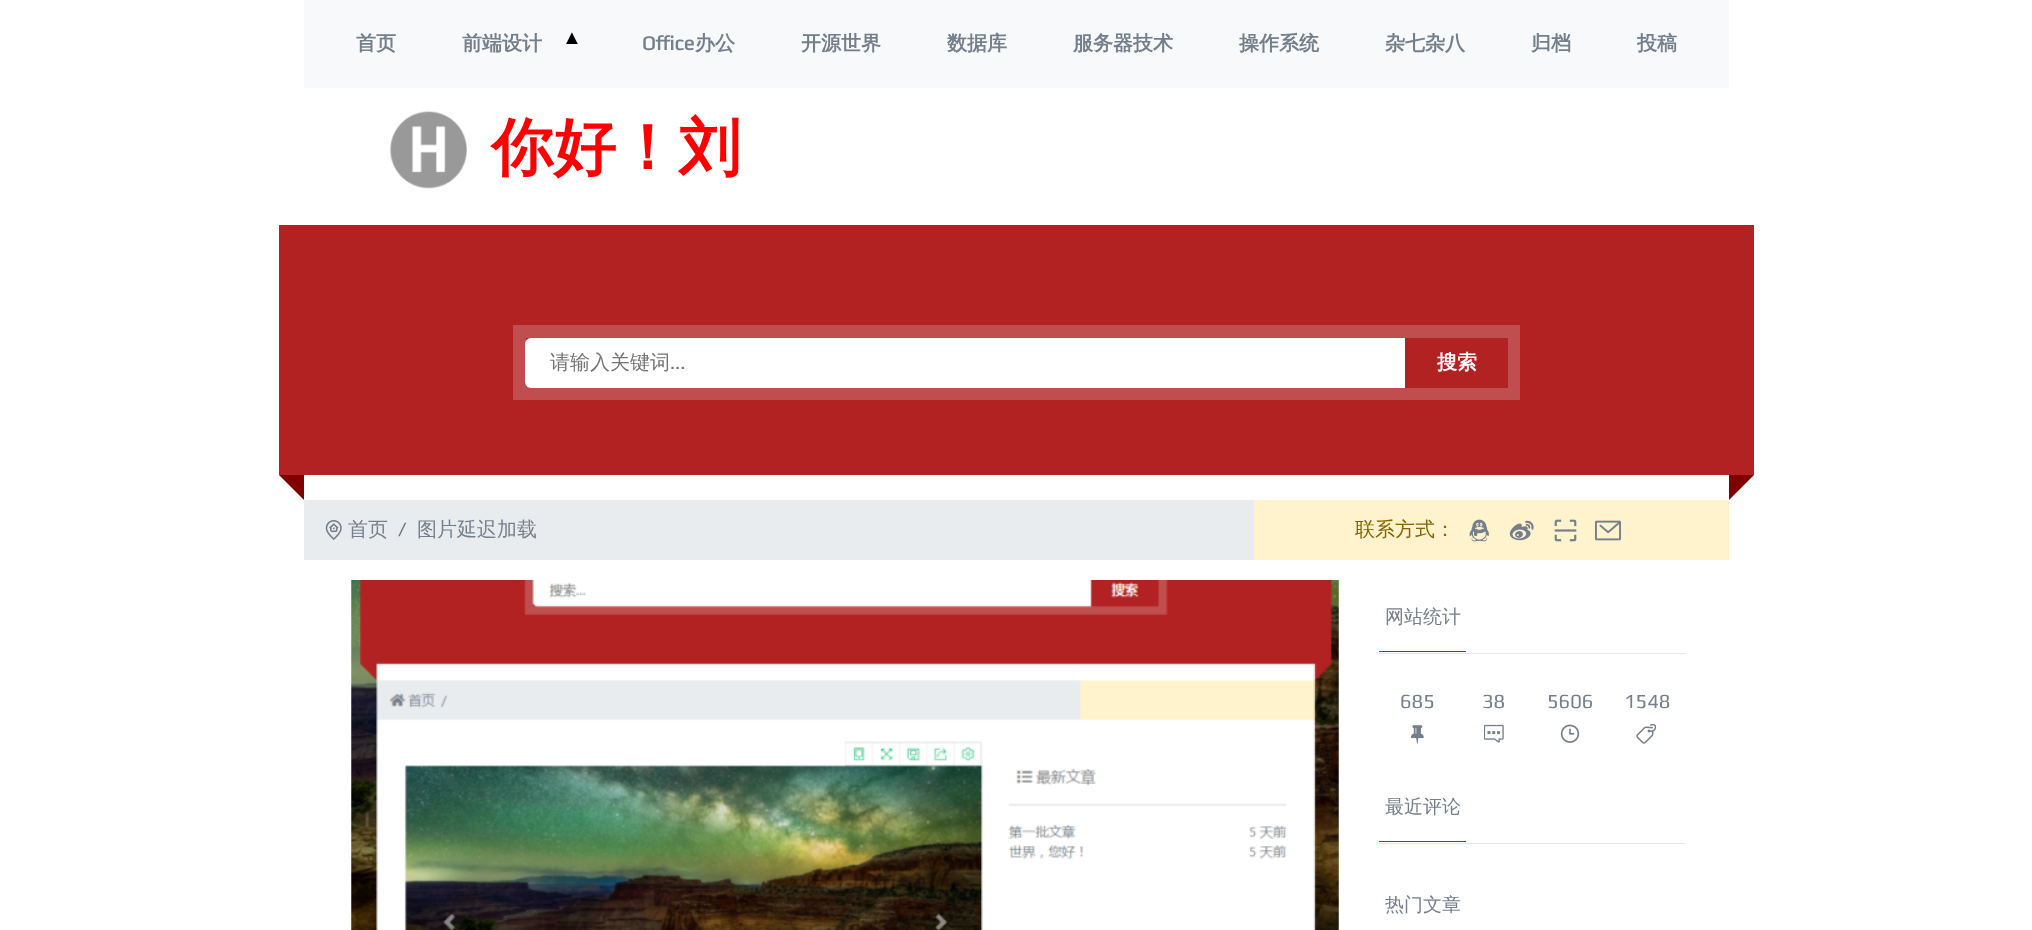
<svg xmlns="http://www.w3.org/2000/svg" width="2032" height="930">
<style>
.a{font:bold 20px WenQuanYi Zen Hei;fill:#747f8c}
.b{font:italic 20px Liberation Sans;fill:#000}
.c{font:bold 20px Play;fill:#747f8c}
.d{font:bold 62.5px WenQuanYi Zen Hei;fill:#f00}
.e{font:500 20px WenQuanYi Zen Hei;fill:#757575}
.f{font:20px Play;fill:#757575}
.g{font:bold 20px WenQuanYi Zen Hei;fill:#fff}
.h{font:500 20px WenQuanYi Zen Hei;fill:#747f8c}
.i{font:20px Play;fill:#6c757d}
.j{font:500 20px WenQuanYi Zen Hei;fill:#856404}
.k{font:500 19px WenQuanYi Zen Hei;fill:#747f8c}
.l{font:20px Play;fill:#747f8c}
</style>
<rect width="100%" height="100%" fill="#fff"/>
<path fill="#f8f9fa" d="M304 0h1425v88H304z"/>
<image href="1.png" x="390" y="111" width="77" height="78"/>
<path fill="#b22222" d="M279 225h1475v250H279z"/>
<path fill="none" stroke="#c14e4e" stroke-width="13" d="M519.5 331.5h994v62H519.5z"/>
<rect fill="#fff" x="525" y="338" width="983" height="50" rx="6"/>
<path fill="#b22222" d="M1405 338h103v50H1405z"/>
<path fill="#800000" d="M279 475h25v25z"/>
<path fill="#800000" d="M1729 475h25l-25 25z"/>
<path fill="#e9ecef" d="M304 500h950v60H304z"/>
<image href="2.png" x="325" y="520" width="17" height="20"/>
<path fill="#fff3cd" d="M1254 500h475v60H1254z"/>
<image href="3.png" x="1469" y="519" width="20" height="23"/>
<image href="4.png" x="1509" y="520" width="25" height="21"/>
<image href="5.png" x="1554" y="519" width="23" height="23"/>
<image href="6.png" x="1595" y="520" width="26" height="21"/>
<image href="7.png" x="351" y="580" width="988" height="350"/>
<path fill="#e6e6e6" d="M1379 653h306v1H1379z"/>
<path fill="#b22222" d="M1379 651h87v1H1379z"/>
<image href="8.png" x="1411" y="725" width="13" height="19"/>
<image href="9.png" x="1484" y="724" width="20" height="19"/>
<image href="10.png" x="1560" y="724" width="20" height="19"/>
<image href="11.png" x="1636" y="724" width="20" height="20"/>
<path fill="#e6e6e6" d="M1379 843h306v1H1379z"/>
<path fill="#b22222" d="M1379 841h87v1H1379z"/>
<text class="a" x="356" y="50">首页</text>
<text class="a" x="462" y="50">前端设计</text>
<text class="b" x="562" y="44">▲</text>
<text class="c" x="642" y="50">Office</text>
<text class="a" x="695" y="50">办公</text>
<text class="a" x="801" y="50">开源世界</text>
<text class="a" x="947" y="50">数据库</text>
<text class="a" x="1073" y="50">服务器技术</text>
<text class="a" x="1239" y="50">操作系统</text>
<text class="a" x="1385" y="50">杂七杂八</text>
<text class="a" x="1531" y="50">归档</text>
<text class="a" x="1637" y="50">投稿</text>
<text class="d" x="491" y="169">你好！刘</text>
<text class="e" x="550" y="369">请输入关键词</text>
<text class="f" x="670" y="369">...</text>
<text class="g" x="1437" y="369">搜索</text>
<text class="h" x="348" y="536">首页</text>
<text class="i" x="398" y="536">/</text>
<text class="h" x="417" y="536">图片延迟加载</text>
<text class="j" x="1355" y="536">联系方式：</text>
<text class="k" x="1385" y="623">网站统计</text>
<text class="l" x="1400" y="708">685</text>
<text class="l" x="1482" y="708">38</text>
<text class="l" x="1547" y="708">5606</text>
<text class="l" x="1624" y="708">1548</text>
<text class="k" x="1385" y="813">最近评论</text>
<text class="k" x="1385" y="911">热门文章</text>
</svg>
